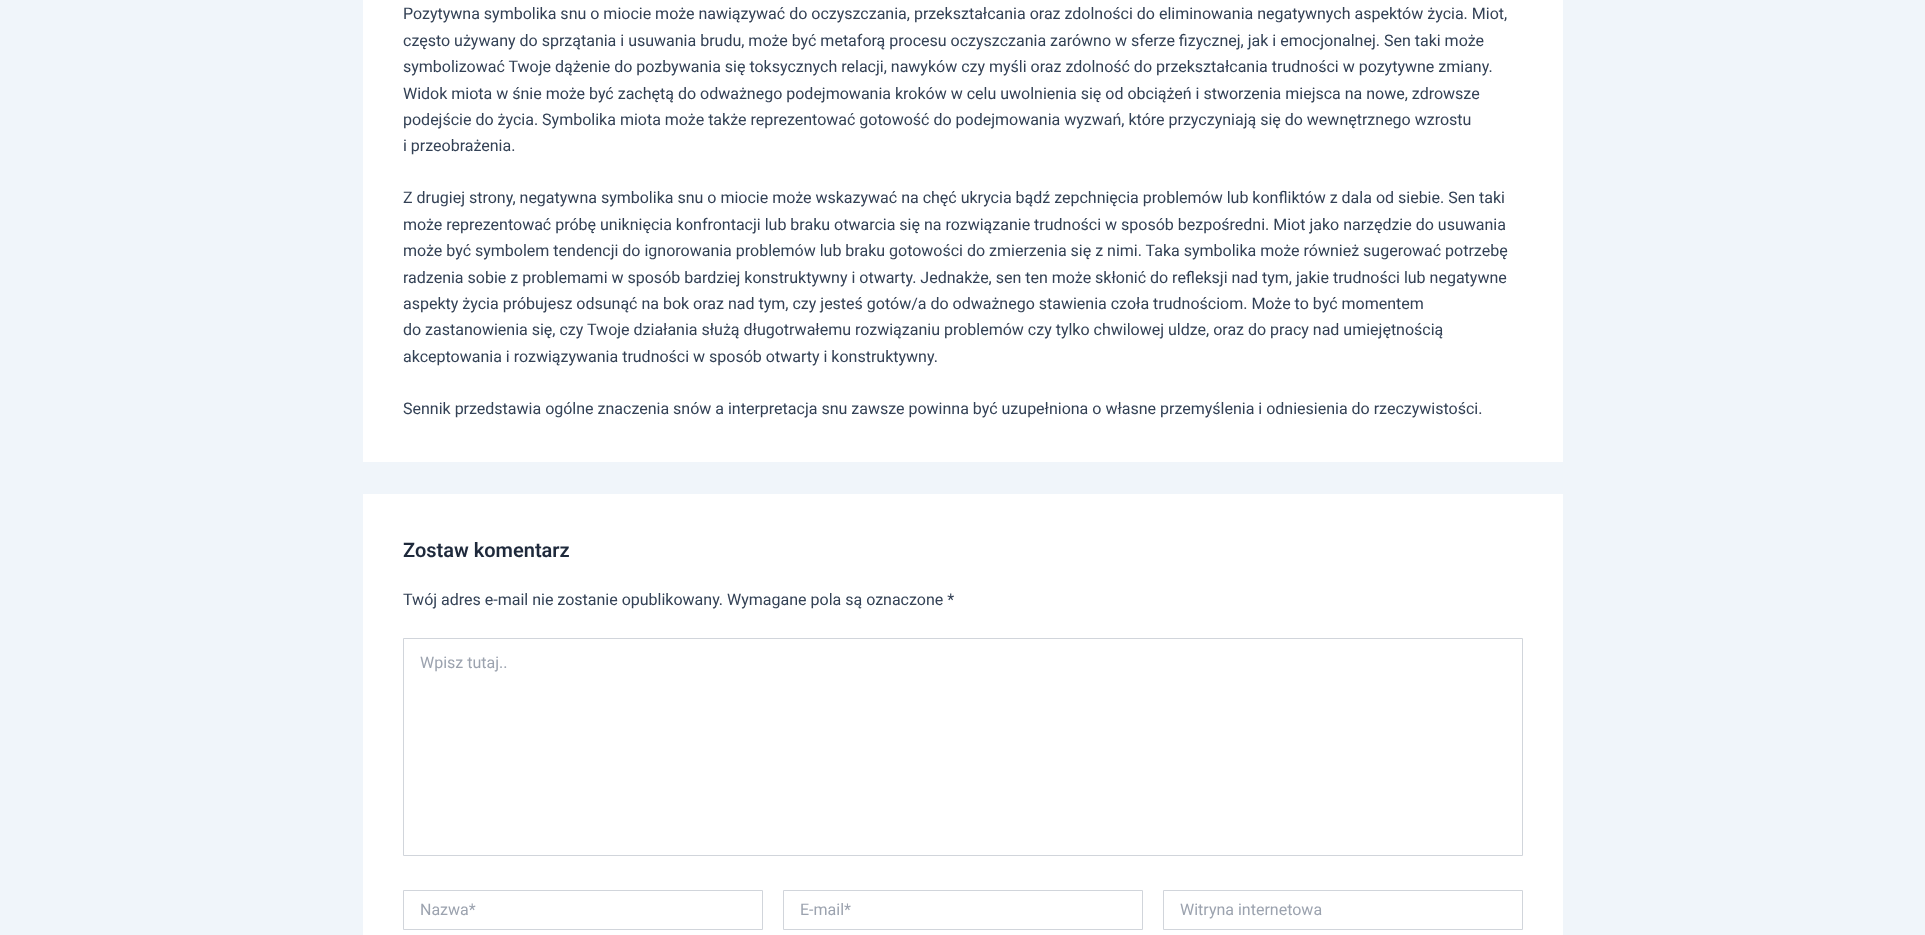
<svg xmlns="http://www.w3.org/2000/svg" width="1925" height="935">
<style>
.a{font:16px Roboto;fill:#334155}
.b{font:600 20px Roboto;fill:#1e293b}
.c{font:16px Roboto;fill:#9ca3af}
</style>
<rect width="100%" height="100%" fill="#f0f5fa"/>
<path fill="#fff" d="M363 0h1200v462H363z"/>
<path fill="#fff" d="M363 494h1200v441H363z"/>
<path fill="none" stroke="#d1d5db" d="M403.5 638.5h1119v217H403.5z"/>
<path fill="none" stroke="#d1d5db" d="M403.5 890.5h359v39H403.5z"/>
<path fill="none" stroke="#d1d5db" d="M783.5 890.5h359v39H783.5z"/>
<path fill="none" stroke="#d1d5db" d="M1163.5 890.5h359v39H1163.5z"/>
<text class="a" x="403" y="19">Pozytywna symbolika snu o miocie może nawiązywać do oczyszczania, przekształcania oraz zdolności do eliminowania negatywnych aspektów życia. Miot,</text>
<text class="a" x="403" y="46">często używany do sprzątania i usuwania brudu, może być metaforą procesu oczyszczania zarówno w sferze fizycznej, jak i emocjonalnej. Sen taki może</text>
<text class="a" x="403" y="72">symbolizować Twoje dążenie do pozbywania się toksycznych relacji, nawyków czy myśli oraz zdolność do przekształcania trudności w pozytywne zmiany.</text>
<text class="a" x="403" y="99">Widok miota w śnie może być zachętą do odważnego podejmowania kroków w celu uwolnienia się od obciążeń i stworzenia miejsca na nowe, zdrowsze</text>
<text class="a" x="403" y="125">podejście do życia. Symbolika miota może także reprezentować gotowość do podejmowania wyzwań, które przyczyniają się do wewnętrznego wzrostu</text>
<text class="a" x="403" y="151">i przeobrażenia.</text>
<text class="a" x="403" y="203">Z drugiej strony, negatywna symbolika snu o miocie może wskazywać na chęć ukrycia bądź zepchnięcia problemów lub konfliktów z dala od siebie. Sen taki</text>
<text class="a" x="403" y="230">może reprezentować próbę uniknięcia konfrontacji lub braku otwarcia się na rozwiązanie trudności w sposób bezpośredni. Miot jako narzędzie do usuwania</text>
<text class="a" x="403" y="256">może być symbolem tendencji do ignorowania problemów lub braku gotowości do zmierzenia się z nimi. Taka symbolika może również sugerować potrzebę</text>
<text class="a" x="403" y="283">radzenia sobie z problemami w sposób bardziej konstruktywny i otwarty. Jednakże, sen ten może skłonić do refleksji nad tym, jakie trudności lub negatywne</text>
<text class="a" x="403" y="309">aspekty życia próbujesz odsunąć na bok oraz nad tym, czy jesteś gotów/a do odważnego stawienia czoła trudnościom. Może to być momentem</text>
<text class="a" x="403" y="335">do zastanowienia się, czy Twoje działania służą długotrwałemu rozwiązaniu problemów czy tylko chwilowej uldze, oraz do pracy nad umiejętnością</text>
<text class="a" x="403" y="362">akceptowania i rozwiązywania trudności w sposób otwarty i konstruktywny.</text>
<text class="a" x="403" y="414">Sennik przedstawia ogólne znaczenia snów a interpretacja snu zawsze powinna być uzupełniona o własne przemyślenia i odniesienia do rzeczywistości.</text>
<text class="b" x="403" y="557">Zostaw komentarz</text>
<text class="a" x="403" y="605">Twój adres e-mail nie zostanie opublikowany. Wymagane pola są oznaczone *</text>
<text class="c" x="420" y="668">Wpisz tutaj..</text>
<text class="c" x="420" y="915">Nazwa*</text>
<text class="c" x="800" y="915">E-mail*</text>
<text class="c" x="1180" y="915">Witryna internetowa</text>
</svg>
